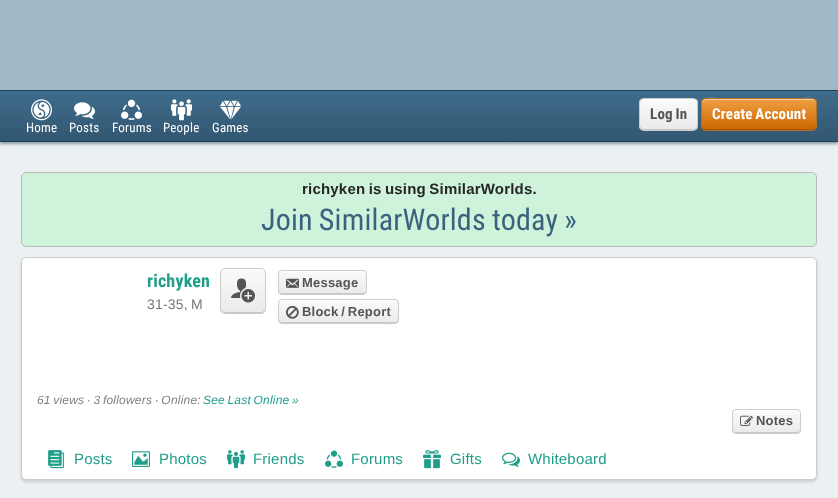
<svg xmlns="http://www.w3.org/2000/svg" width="838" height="498">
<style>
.a{font:bold 15px Roboto Condensed;letter-spacing:0.2px;fill:#555}
.b{font:bold 15px Roboto Condensed;letter-spacing:0.2px;fill:#fff}
.c{font:13px Roboto Condensed;letter-spacing:0.2px;fill:#fff}
.d{font:bold 15px Liberation Sans;letter-spacing:0.2px;fill:#262626}
.e{font:30px Roboto Condensed;letter-spacing:0.2px;fill:#39627f}
.f{font:bold 18px Roboto Condensed;letter-spacing:0.2px;fill:#1f9e89}
.g{font:14px Liberation Sans;letter-spacing:0.2px;fill:#777}
.h{font:bold 13px Liberation Sans;letter-spacing:0.2px;fill:#555}
.i{font:italic 12px Liberation Sans;letter-spacing:0.2px;fill:#808080}
.j{font:italic 12px Liberation Sans;letter-spacing:0.2px;fill:#1f9e89}
.k{font:15px Liberation Sans;letter-spacing:0.2px;fill:#1f9e89}
</style>
<defs>
<linearGradient id="g1" gradientUnits="userSpaceOnUse" x1="419" y1="91" x2="419" y2="141"><stop offset="0" stop-color="#3f6c8c"/><stop offset="1" stop-color="#325771"/></linearGradient>
<clipPath id="clip1"><rect x="639" y="98" width="59" height="33" rx="5"/></clipPath>
<linearGradient id="g2" gradientUnits="userSpaceOnUse" x1="669" y1="99" x2="669" y2="130"><stop offset="0" stop-color="#fafafa"/><stop offset="1" stop-color="#eaeaea"/></linearGradient>
<clipPath id="clip2"><rect x="701" y="98" width="116" height="33" rx="5"/></clipPath>
<linearGradient id="g3" gradientUnits="userSpaceOnUse" x1="759" y1="99" x2="759" y2="130"><stop offset="0" stop-color="#f09f42"/><stop offset="1" stop-color="#c60"/></linearGradient>
<clipPath id="clip3"><rect x="220" y="268" width="46" height="46" rx="5"/></clipPath>
<linearGradient id="g4" gradientUnits="userSpaceOnUse" x1="243" y1="269" x2="243" y2="313"><stop offset="0" stop-color="#fafafa"/><stop offset="1" stop-color="#eaeaea"/></linearGradient>
<clipPath id="clip4"><rect x="278" y="270" width="89" height="25" rx="4"/></clipPath>
<linearGradient id="g5" gradientUnits="userSpaceOnUse" x1="323" y1="271" x2="323" y2="294"><stop offset="0" stop-color="#fafafa"/><stop offset="1" stop-color="#eaeaea"/></linearGradient>
<clipPath id="clip5"><rect x="278" y="299" width="121" height="25" rx="4"/></clipPath>
<linearGradient id="g6" gradientUnits="userSpaceOnUse" x1="339" y1="300" x2="339" y2="323"><stop offset="0" stop-color="#fafafa"/><stop offset="1" stop-color="#eaeaea"/></linearGradient>
<clipPath id="clip6"><rect x="732" y="409" width="69" height="25" rx="4"/></clipPath>
<linearGradient id="g7" gradientUnits="userSpaceOnUse" x1="767" y1="410" x2="767" y2="433"><stop offset="0" stop-color="#fafafa"/><stop offset="1" stop-color="#eaeaea"/></linearGradient>
</defs>
<rect width="100%" height="100%" fill="#ebf0f2"/>
<path fill="#26445980" filter="blur(1.5px)" d="M0 92h838v52H0z"/>
<path fill="#9fb7c7" d="M0 0h838v90H0z"/>
<path fill="url(#g1)" d="M0 91h838v50H0z"/>
<path fill="#1f425c" d="M0 90h838v1H0z"/>
<path fill="#1f425c" d="M0 141h838v1H0z"/>
<g clip-path="url(#clip1)">
<path fill="url(#g2)" d="M639 99h59v31H639z"/>
</g>
<path fill="#c7c7c7" d="M640 125c0 7 7 5 12 5h33c5 0 12 2 12-5c0 2-2 4-4 4h-49c-2 0-4-2-4-4z"/>
<path fill="#fff" d="M644 100h49c2 0 4 2 4 4c0-7-7-5-12-5h-33c-5 0-12-2-12 5c0-2 2-4 4-4z"/>
<rect fill="none" stroke="#ccc" x="639.5" y="98.5" width="58" height="32" rx="4.5"/>
<g clip-path="url(#clip2)">
<path fill="url(#g3)" d="M701 99h116v31H701z"/>
</g>
<path fill="#00000033" d="M702 125c0 10 18 5 22 5h70c4 0 22 5 22-5c0 2-2 4-4 4h-106c-2 0-4-2-4-4z"/>
<path fill="#ffffff80" d="M706 100h106c2 0 4 2 4 4c0-10-18-5-22-5h-70c-4 0-22-5-22 5c0-2 2-4 4-4z"/>
<rect fill="none" stroke="#b2742c" x="701.5" y="98.5" width="115" height="32" rx="4.5"/>
<image href="1.png" x="31" y="99" width="21" height="22"/>
<image href="2.png" x="74" y="102" width="21" height="17"/>
<image href="3.png" x="121" y="99" width="21" height="21"/>
<image href="4.png" x="171" y="99" width="21" height="22"/>
<image href="5.png" x="220" y="100" width="21" height="20"/>
<rect fill="#cef3da" stroke="#bbb" x="21.5" y="172.5" width="795" height="74" rx="4.5"/>
<rect fill="#8080804d" filter="blur(1.5px)" x="21" y="259" width="796" height="223" rx="5"/>
<rect fill="#fff" stroke="#ccc" x="21.5" y="257.5" width="795" height="222" rx="4.5"/>
<g clip-path="url(#clip3)">
<path fill="url(#g4)" d="M220 269h46v44H220z"/>
</g>
<path fill="#c7c7c7" d="M221 308c0 6 5 5 10 5h24c5 0 10 1 10-5c0 2-2 4-4 4h-36c-2 0-4-2-4-4z"/>
<path fill="#fff" d="M225 270h36c2 0 4 2 4 4c0-6-5-5-10-5h-24c-5 0-10-1-10 5c0-2 2-4 4-4z"/>
<rect fill="none" stroke="#ccc" x="220.5" y="268.5" width="45" height="45" rx="4.5"/>
<image href="6.png" x="231" y="278" width="24" height="25"/>
<g clip-path="url(#clip4)">
<path fill="url(#g5)" d="M278 271h89v23H278z"/>
</g>
<path fill="#00000026" d="M279 290c0 8 13 4 17 4h54c3 0 16 4 16-4c0 2-1 3-3 3h-81c-2 0-3-1-3-3z"/>
<path fill="#fff" d="M282 272h81c2 0 3 1 3 3c0-8-13-4-16-4h-54c-4 0-17-4-17 4c0-2 1-3 3-3z"/>
<rect fill="none" stroke="#ccc" x="278.5" y="270.5" width="88" height="24" rx="3.5"/>
<image href="7.png" x="286" y="278" width="13" height="10"/>
<g clip-path="url(#clip5)">
<path fill="url(#g6)" d="M278 300h121v23H278z"/>
</g>
<path fill="#00000026" d="M279 319c0 2 1 4 3 4h94c1 0 22 5 22-4c0 2-1 3-3 3h-113c-2 0-3-1-3-3z"/>
<path fill="#fff" d="M282 301h113c2 0 3 1 3 3c0-2-1-4-3-4h-94c-1 0-22-5-22 4c0-2 1-3 3-3z"/>
<rect fill="none" stroke="#ccc" x="278.5" y="299.5" width="120" height="24" rx="3.5"/>
<image href="8.png" x="286" y="305" width="13" height="14"/>
<g clip-path="url(#clip6)">
<path fill="url(#g7)" d="M732 410h69v23H732z"/>
</g>
<path fill="#00000026" d="M733 429c0 7 9 4 13 4h41c4 0 13 3 13-4c0 2-1 3-3 3h-61c-2 0-3-1-3-3z"/>
<path fill="#fff" d="M736 411h61c2 0 3 1 3 3c0-7-9-4-13-4h-41c-4 0-13-3-13 4c0-2 1-3 3-3z"/>
<rect fill="none" stroke="#ccc" x="732.5" y="409.5" width="68" height="24" rx="3.5"/>
<image href="9.png" x="740" y="415" width="13" height="11"/>
<image href="10.png" x="48" y="450" width="16" height="19"/>
<image href="11.png" x="132" y="451" width="18" height="16"/>
<image href="12.png" x="227" y="450" width="18" height="19"/>
<image href="13.png" x="325" y="450" width="18" height="18"/>
<image href="14.png" x="423" y="450" width="18" height="19"/>
<image href="15.png" x="502" y="452" width="18" height="15"/>
<text class="a" x="650" y="119" word-spacing="-1">Log In</text>
<text class="b" x="712" y="119" word-spacing="-1">Create Account</text>
<text class="c" x="26" y="132">Home</text>
<text class="c" x="69" y="132">Posts</text>
<text class="c" x="112" y="132">Forums</text>
<text class="c" x="163" y="132">People</text>
<text class="c" x="212" y="132">Games</text>
<text class="d" x="302" y="194" word-spacing="-1">richyken is using SimilarWorlds.</text>
<text class="e" x="261" y="230" word-spacing="-1">Join SimilarWorlds today »</text>
<text class="f" x="147" y="287">richyken</text>
<text class="g" x="147" y="309" word-spacing="-1">31-35, M</text>
<text class="h" x="302" y="287">Message</text>
<text class="h" x="302" y="316" word-spacing="-1">Block / Report</text>
<text class="i" x="37" y="404" word-spacing="-1">61 views · 3 followers · Online:</text>
<text class="j" x="203" y="404" word-spacing="-1">See Last Online »</text>
<text class="h" x="756" y="425">Notes</text>
<text class="k" x="74" y="464">Posts</text>
<text class="k" x="159" y="464">Photos</text>
<text class="k" x="253" y="464">Friends</text>
<text class="k" x="351" y="464">Forums</text>
<text class="k" x="450" y="464">Gifts</text>
<text class="k" x="528" y="464">Whiteboard</text>
</svg>
